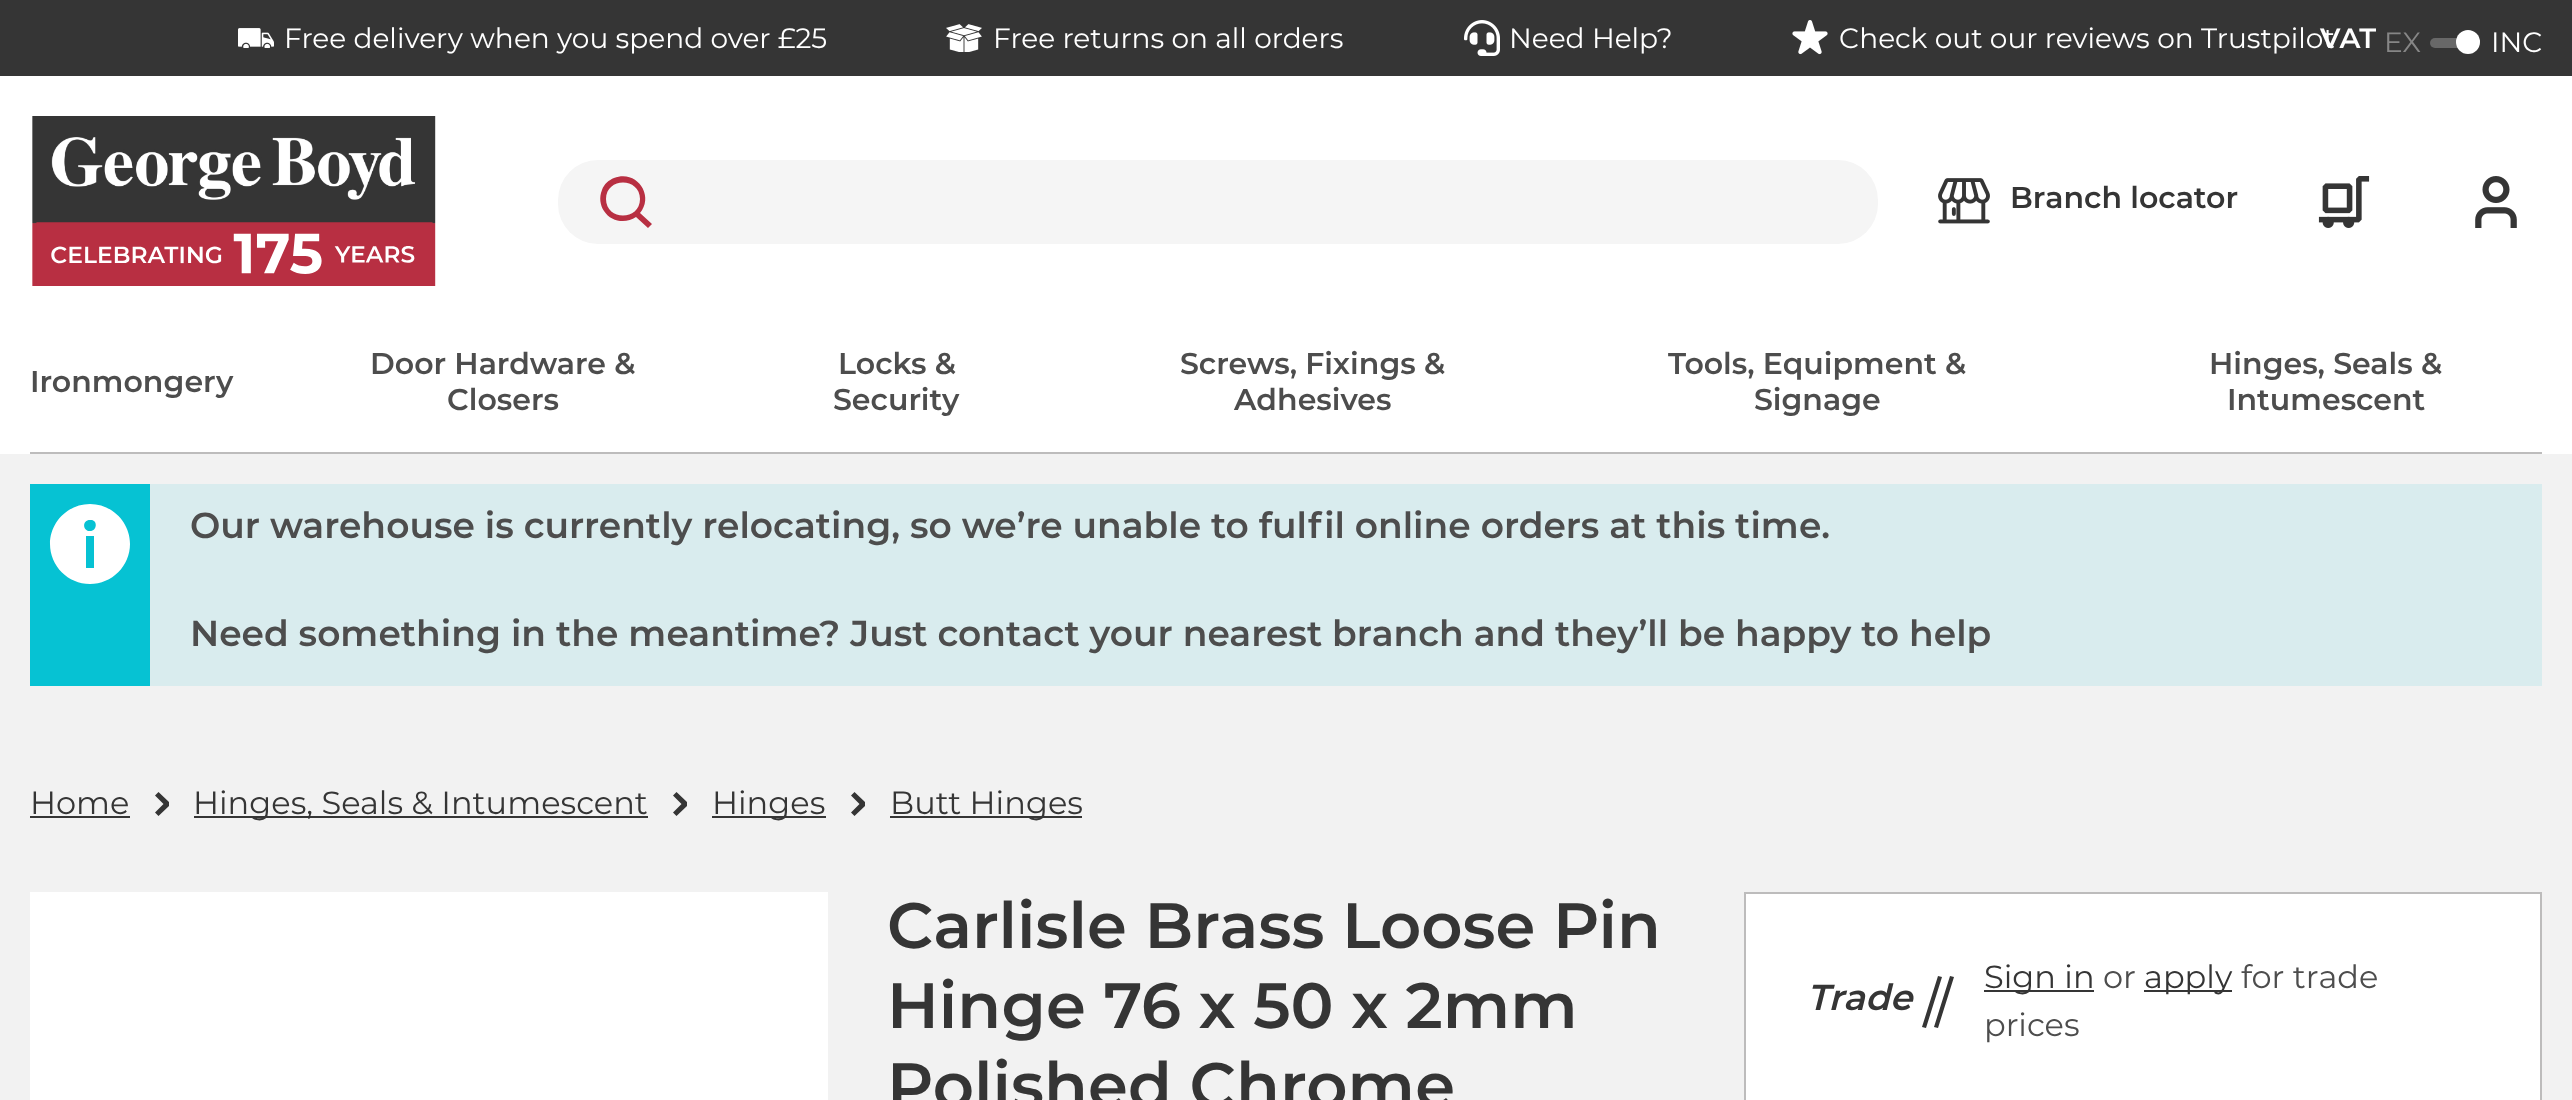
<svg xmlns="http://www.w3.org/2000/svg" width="2572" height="1100">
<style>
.a{font:28px Montserrat;fill:#fff}
.b{font:600 28px Montserrat;fill:#fff}
.c{font:28px Montserrat;fill:#868686}
.d{font:600 30px Montserrat;fill:#353535}
.e{font:600 30px Montserrat;fill:#4d4d4d}
.f{font:600 36px Montserrat;fill:#4d4d4d}
.g{font:32px Montserrat;fill:#353535}
.h{font:600 64px Montserrat;fill:#353535}
.i{font:italic 600 36px Montserrat;fill:#353535}
.j{font:32px Montserrat;fill:#4d4d4d}
</style>
<rect width="100%" height="100%" fill="#f2f2f2"/>
<path fill="#fff" d="M0 76h2572v378H0z"/>
<path fill="#353535" d="M0 0h2572v76H0z"/>
<image href="1.png" x="238" y="28" width="36" height="20"/>
<image href="2.png" x="946" y="24" width="36" height="28"/>
<image href="3.png" x="1464" y="20" width="36" height="36"/>
<image href="4.png" x="1792" y="20" width="36" height="35"/>
<rect fill="#686868" x="2430" y="38" width="50" height="10" rx="5"/>
<circle fill="#fff" cx="2468" cy="42" r="12"/>
<image href="5.png" x="32" y="116" width="404" height="170"/>
<rect fill="#f5f5f5" x="558" y="160" width="1320" height="84" rx="40"/>
<path fill="#b82f42" d="M652 224l-12-11c15-18-4-44-26-35c-5 2-10 6-12 12c-3 7-2 15 2 21c7 11 22 13 32 6l12 11zm-46-25c0-22 34-22 34 0c0 22-34 22-34 0z"/>
<image href="6.png" x="1938" y="178" width="52" height="46"/>
<image href="7.png" x="2318" y="176" width="52" height="52"/>
<image href="8.png" x="2475" y="176" width="42" height="52"/>
<path fill="#bdbcbc" d="M30 452h2512v2H30z"/>
<path fill="#d9ecee" d="M150 484h2392v202H150z"/>
<path fill="#06c2d3" d="M30 484h120v202H30z"/>
<path fill="#fff" d="M90 504c-22 0-40 18-40 40c0 22 18 40 40 40c22 0 40-18 40-40c0-22-18-40-40-40zm4 64h-8v-32h8zm-4-37c-8 0-8-12 1-11c7 0 6 11-1 11z"/>
<path fill="#353535" d="M30 816h100v2H30z"/>
<path fill="#353535" d="M158.5 792l-3.5 3.5l8.5 8.5l-8.5 8.5l3.5 3.5l10.5-10v-4z"/>
<path fill="#353535" d="M194 816h454v2H194z"/>
<path fill="#353535" d="M676.5 792l-3.5 3.5l8.5 8.5l-8.5 8.5l3.5 3.5l10.5-10v-4z"/>
<path fill="#353535" d="M712 816h114v2H712z"/>
<path fill="#353535" d="M854.5 792l-3.5 3.5l8.5 8.5l-8.5 8.5l3.5 3.5l10.5-10v-4z"/>
<path fill="#353535" d="M890 816h192v2H890z"/>
<path fill="#fff" d="M30 892h798v208H30z"/>
<path fill="#fff" stroke="#bdbcbc" stroke-width="2" d="M1745 893h796v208H1745z"/>
<path fill="#353535" d="M1938 976l-16 51l4 1l16-51zm12 0l-16 51l4 1l16-51z"/>
<path fill="#353535" d="M1984 990h110v2H1984z"/>
<path fill="#353535" d="M2144 990h88v2H2144z"/>
<text class="a" x="284" y="48">Free delivery when you spend over £25</text>
<text class="a" x="993" y="48">Free returns on all orders</text>
<text class="a" x="1509" y="48">Need Help?</text>
<text class="a" x="1839" y="48">Check out our reviews on Trustpilot</text>
<text class="b" x="2320" y="48">VAT</text>
<text class="c" x="2384" y="52">EX</text>
<text class="a" x="2491" y="52">INC</text>
<text class="d" x="2010" y="208">Branch locator</text>
<text class="e" x="30" y="392">Ironmongery</text>
<text class="e" x="370" y="374">Door Hardware &amp;</text>
<text class="e" x="447" y="410">Closers</text>
<text class="e" x="838" y="374">Locks &amp;</text>
<text class="e" x="833" y="410">Security</text>
<text class="e" x="1180" y="374">Screws, Fixings &amp;</text>
<text class="e" x="1234" y="410">Adhesives</text>
<text class="e" x="1668" y="374">Tools, Equipment &amp;</text>
<text class="e" x="1754" y="410">Signage</text>
<text class="e" x="2209" y="374">Hinges, Seals &amp;</text>
<text class="e" x="2227" y="410">Intumescent</text>
<text class="f" x="190" y="538">Our warehouse is currently relocating, so we’re unable to fulfil online orders at this time.</text>
<text class="f" x="190" y="646">Need something in the meantime? Just contact your nearest branch and they’ll be happy to help</text>
<text class="g" x="30" y="814">Home</text>
<text class="g" x="193" y="814">Hinges, Seals &amp; Intumescent</text>
<text class="g" x="712" y="814">Hinges</text>
<text class="g" x="890" y="814">Butt Hinges</text>
<text class="h" x="887" y="948">Carlisle Brass Loose Pin</text>
<text class="h" x="887" y="1028">Hinge 76 x 50 x 2mm</text>
<text class="h" x="887" y="1108">Polished Chrome</text>
<text class="i" x="1807" y="1010">Trade</text>
<text class="g" x="1984" y="988">Sign in</text>
<text class="j" x="2103" y="988">or</text>
<text class="g" x="2144" y="988">apply</text>
<text class="j" x="2241" y="988">for trade</text>
<text class="j" x="1984" y="1036">prices</text>
</svg>
